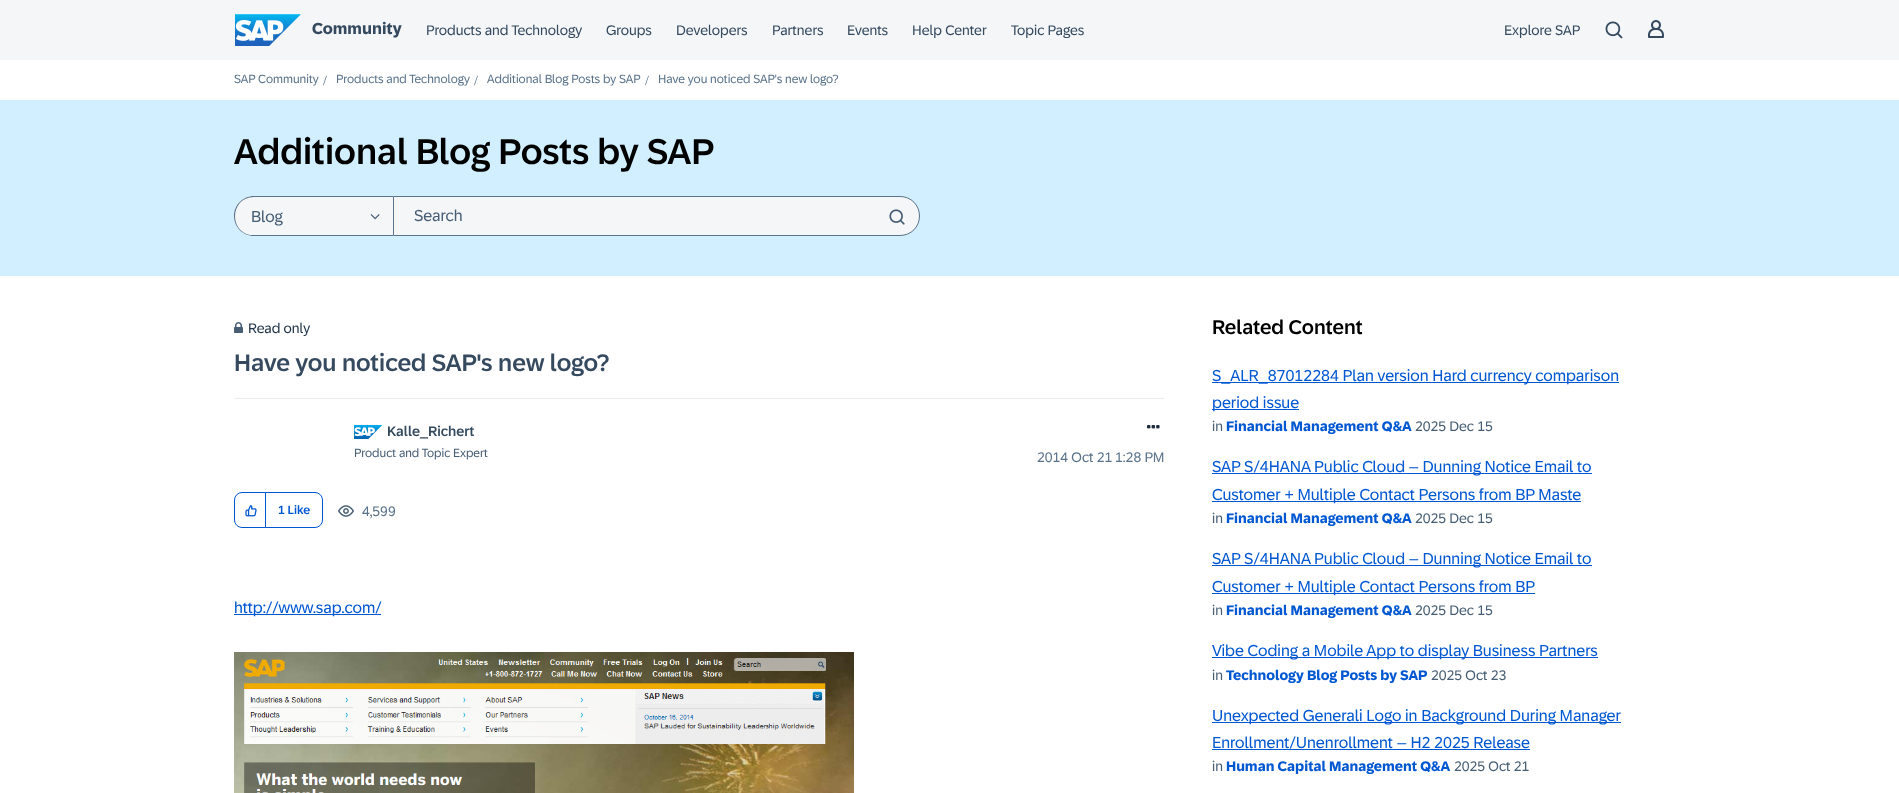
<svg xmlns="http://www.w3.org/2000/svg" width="1899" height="793">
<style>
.a{font:bold 16px '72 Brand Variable';fill:#354a5f}
.b{font:14px '72 Brand Variable';fill:#354a5f}
.c{font:12px '72 Brand Variable';fill:#5b738b}
.d{font:14px Liberation Serif;fill:#5b738b}
.e{font:500 36px '72 Brand Variable';fill:#000}
.f{font:16px '72 Brand Variable';fill:#475e75}
.g{font:14px '72 Brand Variable';fill:#223548}
.h{font:500 24px '72 Brand Variable';fill:#354a5f}
.i{font:500 14px '72 Brand Variable';fill:#354a5f}
.j{font:12px '72 Brand Variable';fill:#475e75}
.k{font:14px '72 Brand Variable';fill:#5b738b}
.l{font:500 12px '72 Brand Variable';fill:#0057d2}
.m{font:16px '72 Brand Variable';fill:#0057d2}
.n{font:500 20px '72 Brand Variable';fill:#000}
.o{font:14px '72 Brand Variable';fill:#475e75}
.p{font:bold 14px '72 Brand Variable';fill:#0057d2}
</style>
<rect width="100%" height="100%" fill="#fff"/>
<path fill="#f5f6f7" d="M0 0h1899v60H0z"/>
<image href="1.png" x="235" y="14" width="66" height="32"/>
<image href="2.png" x="1605" y="21" width="18" height="18"/>
<image href="3.png" x="1648" y="20" width="16" height="18"/>
<path fill="#d1efff" d="M0 100h1899v176H0z"/>
<path fill="#f5f6f7" d="M254 196h139v40h-139c-11 0-20-9-20-20c0-11 9-20 20-20z"/>
<path fill="#5b738b" fill-rule="evenodd" d="M254 196h139v40h-139c-11 0-20-9-20-20c0-11 9-20 20-20zm0 1h139v38h-143c-22-5-19-38 4-38z"/>
<image href="4.png" x="370" y="214" width="10" height="6"/>
<path fill="#f5f6f7" stroke="#5b738b" d="M393.5 196.5h506.5c11 0 19.5 8.5 19.5 19.5c0 11-8.5 19.5-19.5 19.5h-506.5z"/>
<image href="5.png" x="889" y="209" width="16" height="16"/>
<path fill="#eaecee" d="M234 398h930v1H234z"/>
<image href="6.png" x="234" y="322" width="9" height="11"/>
<image href="7.png" x="354" y="425" width="29" height="14"/>
<image href="8.png" x="1147" y="425" width="13" height="4"/>
<rect fill="none" stroke="#0057d2" x="234.5" y="492.5" width="88" height="35" rx="7.5"/>
<path fill="#0057d2" d="M265 493h1v35H265z"/>
<image href="9.png" x="245" y="505" width="12" height="12"/>
<image href="10.png" x="338" y="505" width="16" height="12"/>
<path fill="#0057d2" d="M234 614h147v1H234z"/>
<image href="11.png" x="234" y="652" width="620" height="141"/>
<path fill="#0057d2" d="M1212 382h407v1H1212z"/>
<path fill="#0057d2" d="M1212 409h87v1H1212z"/>
<path fill="#0057d2" d="M1212 473h380v1H1212z"/>
<path fill="#0057d2" d="M1212 501h369v1H1212z"/>
<path fill="#0057d2" d="M1212 565h380v1H1212z"/>
<path fill="#0057d2" d="M1212 593h323v1H1212z"/>
<path fill="#0057d2" d="M1212 657h386v1H1212z"/>
<path fill="#0057d2" d="M1212 722h409v1H1212z"/>
<path fill="#0057d2" d="M1212 749h318v1H1212z"/>
<text class="a" x="312" y="34">Community</text>
<text class="b" x="426" y="35">Products and Technology</text>
<text class="b" x="606" y="35">Groups</text>
<text class="b" x="676" y="35">Developers</text>
<text class="b" x="772" y="35">Partners</text>
<text class="b" x="847" y="35">Events</text>
<text class="b" x="912" y="35">Help Center</text>
<text class="b" x="1011" y="35">Topic Pages</text>
<text class="b" x="1504" y="35">Explore SAP</text>
<text class="c" x="234" y="83">SAP Community</text>
<text class="d" x="323" y="85">/</text>
<text class="c" x="336" y="83">Products and Technology</text>
<text class="d" x="474" y="85">/</text>
<text class="c" x="487" y="83">Additional Blog Posts by SAP</text>
<text class="d" x="645" y="85">/</text>
<text class="c" x="658" y="83">Have you noticed SAP's new logo?</text>
<text class="e" x="234" y="164">Additional Blog Posts by SAP</text>
<text class="f" x="251" y="222">Blog</text>
<text class="f" x="414" y="221">Search</text>
<text class="g" x="248" y="333">Read only</text>
<text class="h" x="234" y="371">Have you noticed SAP's new logo?</text>
<text class="i" x="387" y="436">Kalle_Richert</text>
<text class="j" x="354" y="457">Product and Topic Expert</text>
<text class="k" x="1037" y="462">2014 Oct 21</text>
<text class="k" x="1115" y="462">1:28 PM</text>
<text class="l" x="278" y="514">1 Like</text>
<text class="k" x="362" y="516">4,599</text>
<text class="m" x="234" y="613">http://www.sap.com/</text>
<text class="n" x="1212" y="334">Related Content</text>
<text class="m" x="1212" y="381">S_ALR_87012284 Plan version Hard currency comparison</text>
<text class="m" x="1212" y="408">period issue</text>
<text class="o" x="1212" y="431">in</text>
<text class="p" x="1226" y="431">Financial Management Q&amp;A</text>
<text class="o" x="1415" y="431">2025 Dec 15</text>
<text class="m" x="1212" y="472">SAP S/4HANA Public Cloud – Dunning Notice Email to</text>
<text class="m" x="1212" y="500">Customer + Multiple Contact Persons from BP Maste</text>
<text class="o" x="1212" y="523">in</text>
<text class="p" x="1226" y="523">Financial Management Q&amp;A</text>
<text class="o" x="1415" y="523">2025 Dec 15</text>
<text class="m" x="1212" y="564">SAP S/4HANA Public Cloud – Dunning Notice Email to</text>
<text class="m" x="1212" y="592">Customer + Multiple Contact Persons from BP</text>
<text class="o" x="1212" y="615">in</text>
<text class="p" x="1226" y="615">Financial Management Q&amp;A</text>
<text class="o" x="1415" y="615">2025 Dec 15</text>
<text class="m" x="1212" y="656">Vibe Coding a Mobile App to display Business Partners</text>
<text class="o" x="1212" y="680">in</text>
<text class="p" x="1226" y="680">Technology Blog Posts by SAP</text>
<text class="o" x="1431" y="680">2025 Oct 23</text>
<text class="m" x="1212" y="721">Unexpected Generali Logo in Background During Manager</text>
<text class="m" x="1212" y="748">Enrollment/Unenrollment – H2 2025 Release</text>
<text class="o" x="1212" y="771">in</text>
<text class="p" x="1226" y="771">Human Capital Management Q&amp;A</text>
<text class="o" x="1454" y="771">2025 Oct 21</text>
</svg>
